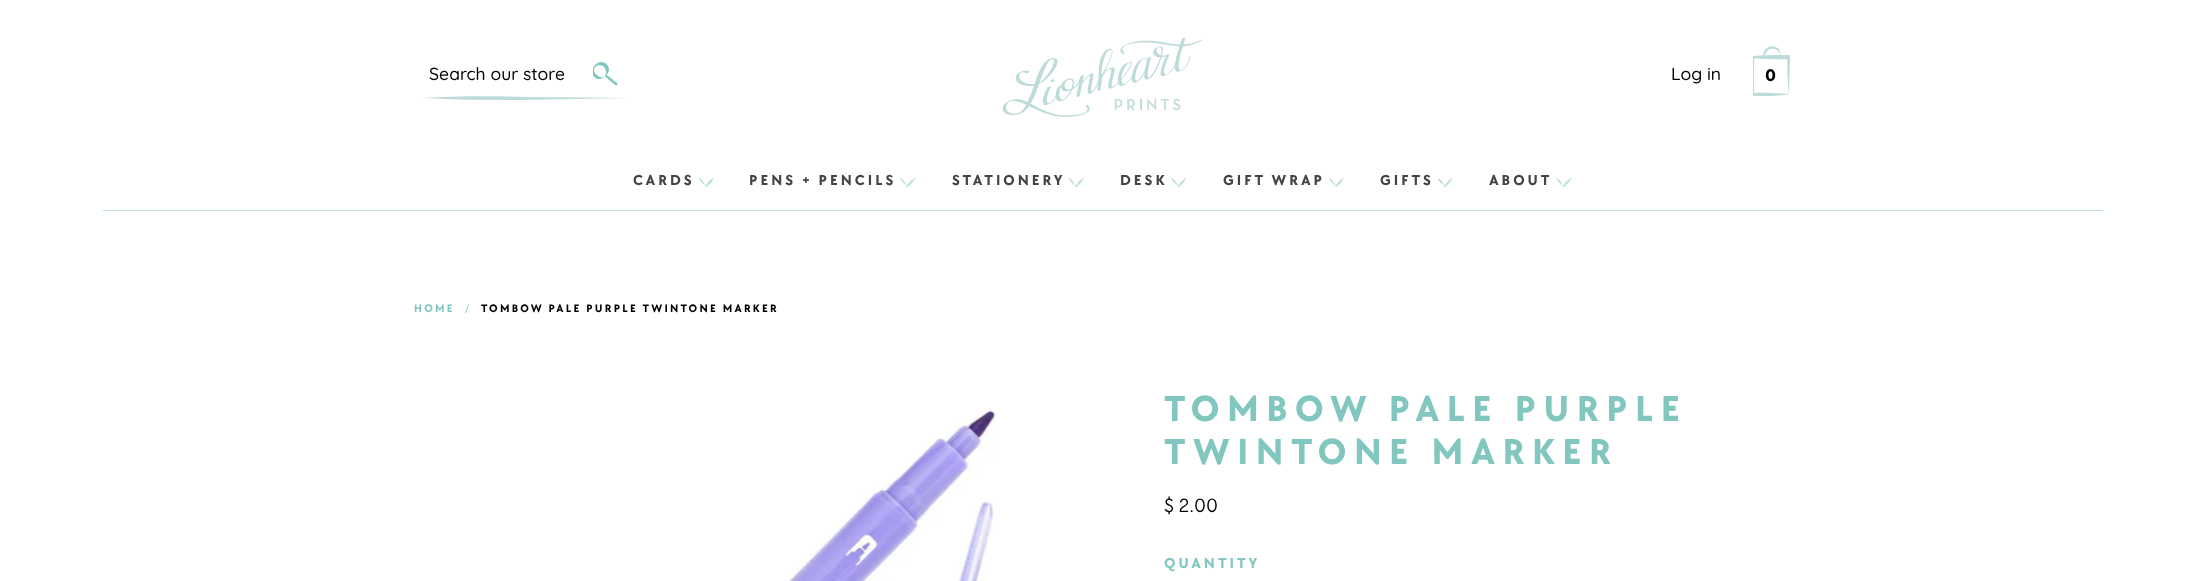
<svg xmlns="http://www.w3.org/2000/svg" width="2203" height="581">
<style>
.a{font:500 17.5px Quicksand;fill:#000}
.b{font:17.5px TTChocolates;fill:#000}
.c{font:15px TTChocolates;letter-spacing:3px;fill:#444}
.d{font:11.25px TTChocolates;letter-spacing:2.25px;fill:#82c6c0}
.e{font:11.25px 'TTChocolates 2';letter-spacing:2.25px;fill:#82c6c0}
.f{font:11.25px TTChocolates;letter-spacing:2.25px;fill:#000}
.g{font:37.5px TTChocolates;letter-spacing:7.5px;fill:#82c6c0}
.h{font:20px 'TTChocolates 2';fill:#000}
.i{font:15px TTChocolates;letter-spacing:3px;fill:#82c6c0}
</style>
<rect width="100%" height="100%" fill="#fff"/>
<path fill="#bddcd9" d="M632 98l-111 2c-33 0-66 0-99-2c35-2 70-2 106-1z"/>
<image href="1.png" x="593" y="62" width="25" height="24"/>
<image href="2.png" x="1003" y="38" width="199" height="79"/>
<image href="3.png" x="1753" y="46" width="37" height="50"/>
<path fill="#bcdedb" d="M103 210h2000v1H103z"/>
<image href="4.png" x="699" y="177" width="15" height="10"/>
<image href="5.png" x="900" y="177" width="15" height="11"/>
<image href="4.png" x="1069" y="177" width="15" height="10"/>
<image href="6.png" x="1171" y="177" width="15" height="11"/>
<image href="4.png" x="1329" y="177" width="15" height="10"/>
<image href="7.png" x="1438" y="177" width="15" height="11"/>
<image href="6.png" x="1556" y="177" width="15" height="11"/>
<image href="8.png" x="786" y="408" width="211" height="173"/>
<text class="a" x="429" y="80">Search our store</text>
<text class="a" x="1671" y="80">Log in</text>
<text class="b" x="1765" y="81">0</text>
<text class="c" x="633" y="185">CARDS</text>
<text class="c" x="749" y="185">PENS + PENCILS</text>
<text class="c" x="952" y="185">STATIONERY</text>
<text class="c" x="1120" y="185">DESK</text>
<text class="c" x="1223" y="185">GIFT WRAP</text>
<text class="c" x="1380" y="185">GIFTS</text>
<text class="c" x="1489" y="185">ABOUT</text>
<text class="d" x="414" y="312">HOME</text>
<text class="e" x="465" y="312">/</text>
<text class="f" x="481" y="312">TOMBOW PALE PURPLE TWINTONE MARKER</text>
<text class="g" x="1164" y="421">TOMBOW PALE PURPLE</text>
<text class="g" x="1164" y="464">TWINTONE MARKER</text>
<text class="h" x="1164" y="512">$ 2.00</text>
<text class="i" x="1164" y="568">QUANTITY</text>
</svg>
